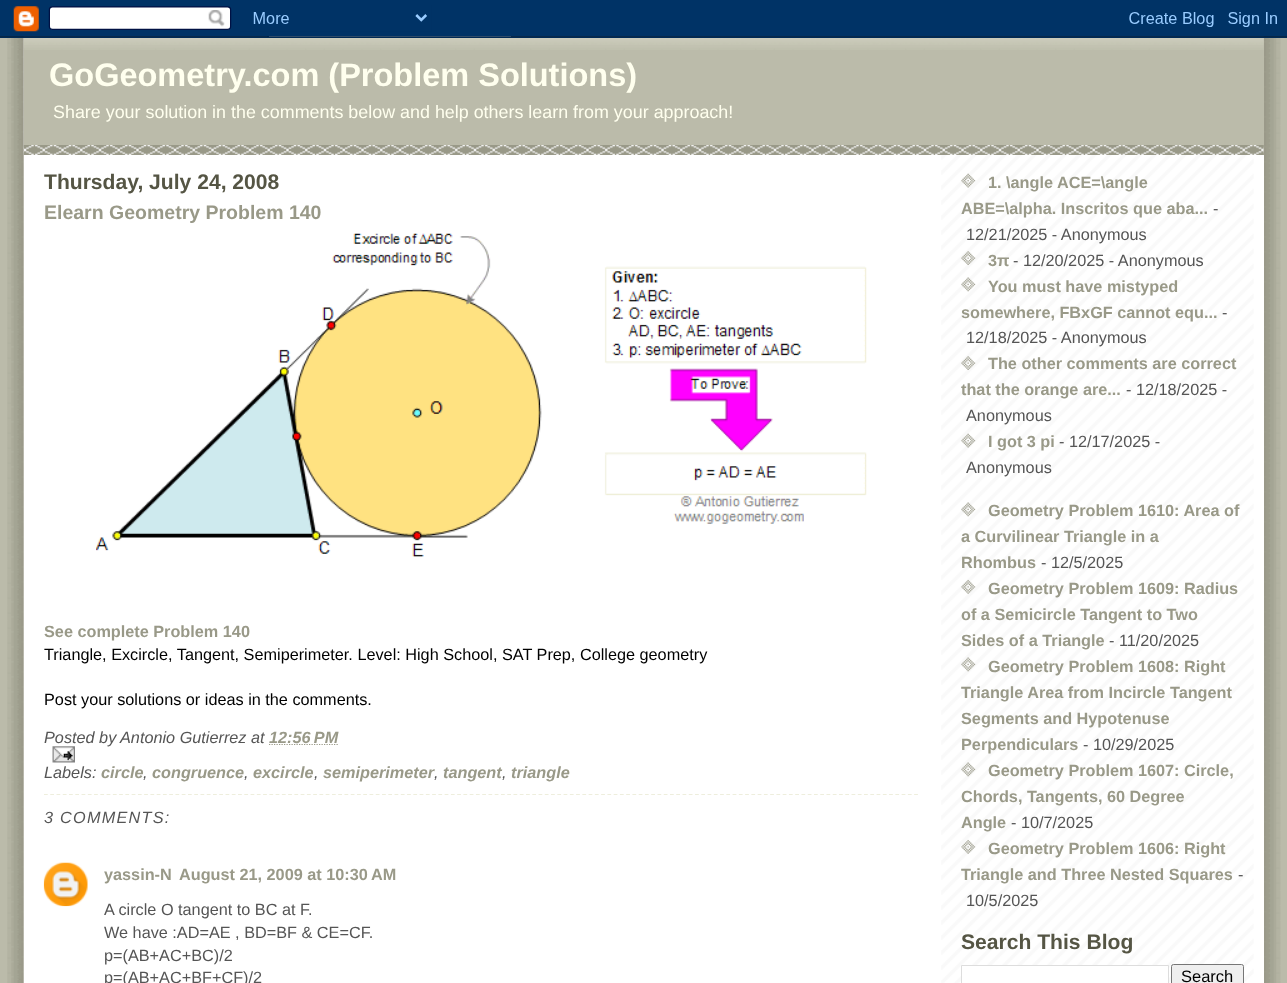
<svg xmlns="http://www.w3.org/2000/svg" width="1287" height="983">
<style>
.a{font:bold 32.5px Liberation Sans;fill:#ffe}
.b{font:17.9px Liberation Sans;fill:#ffe}
.c{font:bold 21.1px Liberation Sans;fill:#554}
.d{font:bold 19.5px Liberation Sans;fill:#998}
.e{font:bold 16.25px Liberation Sans;fill:#998}
.f{font:16.25px Liberation Sans;fill:#000}
.g{font:italic 16.25px Liberation Sans;fill:#555}
.h{font:italic bold 16.25px Liberation Sans;fill:#998}
.i{font:italic 16.25px Liberation Sans;letter-spacing:1.25px;fill:#555}
.j{font:16.25px Liberation Sans;fill:#555}
.k{font:16.5px Liberation Sans;fill:#000}
</style>
<rect width="100%" height="100%" fill="#bba"/>
<image href="1.png" x="7" y="36" width="1274" height="947"/>
<image href="2.png" x="0" y="0" width="1287" height="38"/>
<path fill="#fff" d="M24 155h1240v828H24z"/>
<image href="3.png" x="941" y="155" width="323" height="828"/>
<path fill="#bba" d="M24 38h1240v117H24z"/>
<image href="4.png" x="23" y="145" width="1241" height="10"/>
<image href="5.png" x="23" y="38" width="1241" height="12"/>
<image href="6.png" x="96" y="233" width="771" height="324"/>
<path fill="none" stroke="#998" stroke-width="1.2" stroke-dasharray="1.25 1.25" d="M269 744.5h69"/>
<path fill="none" stroke="#eed" stroke-width="1.2" stroke-dasharray="3.75 2.51" d="M44 794.5h875"/>
<image href="8.png" x="43" y="862" width="45" height="45"/>
<image href="9.png" x="961" y="173" width="15" height="15"/>
<image href="10.png" x="961" y="251" width="15" height="14"/>
<image href="11.png" x="961" y="277" width="15" height="15"/>
<image href="10.png" x="961" y="356" width="15" height="14"/>
<image href="12.png" x="961" y="433" width="15" height="15"/>
<image href="11.png" x="961" y="502" width="15" height="15"/>
<image href="13.png" x="961" y="579" width="15" height="15"/>
<image href="14.png" x="961" y="657" width="15" height="15"/>
<image href="14.png" x="961" y="762" width="15" height="15"/>
<image href="15.png" x="961" y="839" width="15" height="15"/>
<path fill="#fff" stroke="#ddd" d="M961.5 965.5h207v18H961.5z"/>
<rect fill="#efefef" stroke="#767676" x="1171.5" y="964.5" width="72" height="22" rx="2"/>
<text class="a" x="49" y="86">GoGeometry.com (Problem Solutions)</text>
<text class="b" x="53" y="118">Share your solution in the comments below and help others learn from your approach!</text>
<text class="c" x="44" y="189">Thursday, July 24, 2008</text>
<text class="d" x="44" y="219">Elearn Geometry Problem 140</text>
<text class="e" x="44" y="637">See complete Problem 140</text>
<text class="f" x="44" y="660">Triangle, Excircle, Tangent, Semiperimeter. Level: High School, SAT Prep, College geometry</text>
<text class="f" x="44" y="705">Post your solutions or ideas in the comments.</text>
<text class="g" x="44" y="743">Posted by</text>
<text class="g" x="120" y="743">Antonio Gutierrez at</text>
<text class="h" x="269" y="743">12:56 PM</text>
<image href="7.png" x="52" y="746" width="23" height="17"/>
<text class="g" x="44" y="778">Labels:</text>
<text class="h" x="101" y="778">circle</text>
<text class="g" x="143" y="778">,</text>
<text class="h" x="152" y="778">congruence</text>
<text class="g" x="244" y="778">,</text>
<text class="h" x="253" y="778">excircle</text>
<text class="g" x="314" y="778">,</text>
<text class="h" x="323" y="778">semiperimeter</text>
<text class="g" x="434" y="778">,</text>
<text class="h" x="443" y="778">tangent</text>
<text class="g" x="502" y="778">,</text>
<text class="h" x="511" y="778">triangle</text>
<text class="i" x="44" y="823">3 COMMENTS:</text>
<text class="e" x="104" y="880">yassin-N</text>
<text class="e" x="179" y="880">August 21, 2009 at 10:30 AM</text>
<text class="j" x="104" y="915">A circle O tangent to BC at F.</text>
<text class="j" x="104" y="938">We have :AD=AE , BD=BF &amp; CE=CF.</text>
<text class="j" x="104" y="961">p=(AB+AC+BC)/2</text>
<text class="j" x="104" y="983">p=(AB+AC+BF+CF)/2</text>
<text class="e" x="988" y="188">1. \angle ACE=\angle</text>
<text class="e" x="961" y="214">ABE=\alpha. Inscritos que aba...</text>
<text class="j" x="1213" y="214">-</text>
<text class="j" x="966" y="240">12/21/2025 - Anonymous</text>
<text class="e" x="988" y="266">3π</text>
<text class="j" x="1013" y="266">- 12/20/2025 - Anonymous</text>
<text class="e" x="988" y="292">You must have mistyped</text>
<text class="e" x="961" y="318">somewhere, FBxGF cannot equ...</text>
<text class="j" x="1222" y="318">-</text>
<text class="j" x="966" y="343">12/18/2025 - Anonymous</text>
<text class="e" x="988" y="369">The other comments are correct</text>
<text class="e" x="961" y="395">that the orange are...</text>
<text class="j" x="1126" y="395">- 12/18/2025 -</text>
<text class="j" x="966" y="421">Anonymous</text>
<text class="e" x="988" y="447">I got 3 pi</text>
<text class="j" x="1059" y="447">- 12/17/2025 -</text>
<text class="j" x="966" y="473">Anonymous</text>
<text class="e" x="988" y="516">Geometry Problem 1610: Area of</text>
<text class="e" x="961" y="542">a Curvilinear Triangle in a</text>
<text class="e" x="961" y="568">Rhombus</text>
<text class="j" x="1041" y="568">- 12/5/2025</text>
<text class="e" x="988" y="594">Geometry Problem 1609: Radius</text>
<text class="e" x="961" y="620">of a Semicircle Tangent to Two</text>
<text class="e" x="961" y="646">Sides of a Triangle</text>
<text class="j" x="1109" y="646">- 11/20/2025</text>
<text class="e" x="988" y="672">Geometry Problem 1608: Right</text>
<text class="e" x="961" y="698">Triangle Area from Incircle Tangent</text>
<text class="e" x="961" y="724">Segments and Hypotenuse</text>
<text class="e" x="961" y="750">Perpendiculars</text>
<text class="j" x="1083" y="750">- 10/29/2025</text>
<text class="e" x="988" y="776">Geometry Problem 1607: Circle,</text>
<text class="e" x="961" y="802">Chords, Tangents, 60 Degree</text>
<text class="e" x="961" y="828">Angle</text>
<text class="j" x="1011" y="828">- 10/7/2025</text>
<text class="e" x="988" y="854">Geometry Problem 1606: Right</text>
<text class="e" x="961" y="880">Triangle and Three Nested Squares</text>
<text class="j" x="1238" y="880">-</text>
<text class="j" x="966" y="906">10/5/2025</text>
<text class="c" x="961" y="949">Search This Blog</text>
<text class="k" x="1181" y="982">Search</text>
</svg>
